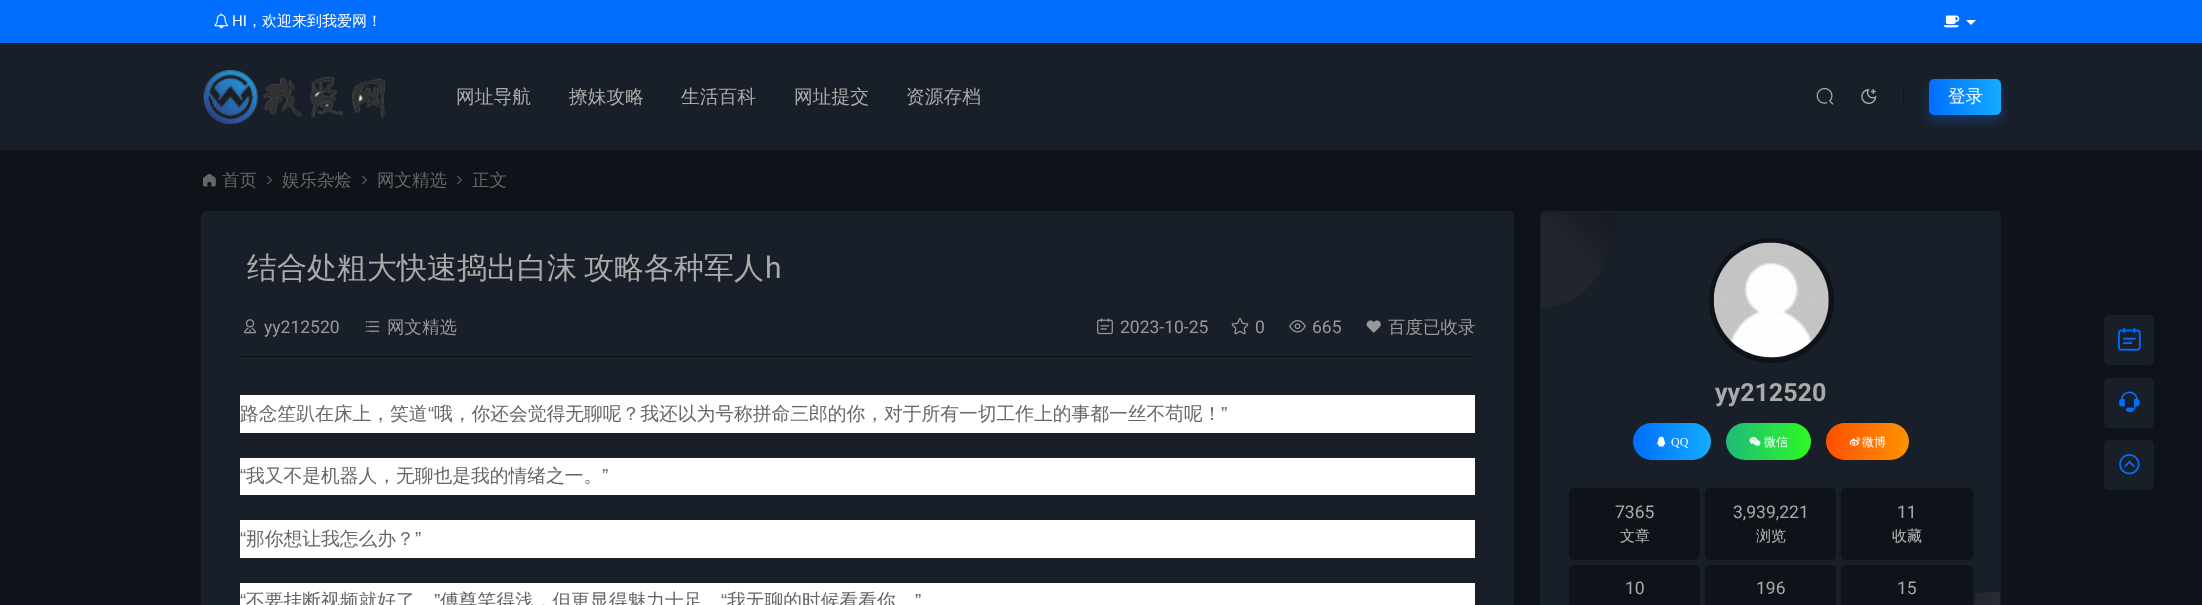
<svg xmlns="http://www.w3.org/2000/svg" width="2202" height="605">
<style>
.a{font:15px Roboto;fill:#fff}
.b{font:500 15px WenQuanYi Zen Hei;fill:#fff}
.c{font:500 18.75px WenQuanYi Zen Hei;fill:#aaa}
.d{font:500 17.5px WenQuanYi Zen Hei;fill:#fff}
.e{font:500 17.5px WenQuanYi Zen Hei;fill:#666}
.f{font:500 30px WenQuanYi Zen Hei;fill:#aaa}
.g{font:30px Roboto;fill:#aaa}
.h{font:17.5px Roboto;fill:#999}
.i{font:500 17.5px WenQuanYi Zen Hei;fill:#999}
.j{font:500 18.75px WenQuanYi Zen Hei;fill:#666}
.k{font:18.75px Liberation Sans;fill:#666}
.l{font:bold 25px Roboto;fill:#aaa}
.m{font:12px Liberation Serif;fill:#fff}
.n{font:500 12px WenQuanYi Zen Hei;fill:#fff}
.o{font:17.5px Roboto;fill:#aaa}
.p{font:500 15px WenQuanYi Zen Hei;fill:#bdbdbd}
</style>
<defs>
<linearGradient id="g1" gradientUnits="userSpaceOnUse" x1="1929" y1="97" x2="2001" y2="97"><stop offset="0" stop-color="#006eff"/><stop offset="1" stop-color="#13adff"/></linearGradient>
<linearGradient id="g2" gradientUnits="userSpaceOnUse" x1="1537" y1="303" x2="1621" y2="217"><stop offset="0.48" stop-color="#21252c"/><stop offset="0.91" stop-color="#161b24"/></linearGradient>
<linearGradient id="g3" gradientUnits="userSpaceOnUse" x1="1633" y1="441" x2="1711" y2="441"><stop offset="0" stop-color="#006eff"/><stop offset="1" stop-color="#13adff"/></linearGradient>
<linearGradient id="g4" gradientUnits="userSpaceOnUse" x1="1726" y1="441" x2="1811" y2="441"><stop offset="0" stop-color="#1fbb7a"/><stop offset="1" stop-color="#2cf923"/></linearGradient>
<linearGradient id="g5" gradientUnits="userSpaceOnUse" x1="1826" y1="441" x2="1909" y2="441"><stop offset="0" stop-color="#ff5000"/><stop offset="1" stop-color="#ff9300"/></linearGradient>
<linearGradient id="g6" gradientUnits="userSpaceOnUse" x1="1891" y1="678" x2="1984" y2="578"><stop offset="0.01" stop-color="#151a22"/><stop offset="1" stop-color="#282b31"/></linearGradient>
</defs>
<rect width="100%" height="100%" fill="#0e131a"/>
<path fill="#026eff" d="M0 0h2202v43H0z"/>
<image href="1.png" x="214" y="13" width="15" height="16"/>
<image href="2.png" x="1943" y="15" width="17" height="13"/>
<path fill="#fff" d="M1966 20h10l-5 5z"/>
<path fill="#191f28" d="M0 43h2202v107H0z"/>
<image href="3.png" x="203" y="69" width="183" height="55"/>
<image href="4.png" x="1816" y="87" width="18" height="18"/>
<image href="5.png" x="1861" y="89" width="16" height="15"/>
<path fill="#12161c" d="M1903 89h1v15H1903z"/>
<rect fill="#106efd4d" filter="blur(6px)" x="1929" y="85" width="72" height="36" rx="5"/>
<rect fill="url(#g1)" x="1929" y="79" width="72" height="36" rx="5"/>
<image href="6.png" x="202" y="173" width="14" height="14"/>
<image href="7.png" x="267" y="175" width="5" height="10"/>
<image href="7.png" x="362" y="175" width="5" height="10"/>
<image href="7.png" x="457" y="175" width="5" height="10"/>
<rect fill="#191f28" x="201" y="211" width="1313" height="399" rx="5"/>
<path fill="#0e131a" d="M240 356h1235v1H240z"/>
<image href="8.png" x="244" y="319" width="12" height="15"/>
<image href="9.png" x="365" y="321" width="15" height="11"/>
<image href="10.png" x="1097" y="318" width="16" height="17"/>
<image href="11.png" x="1231" y="318" width="18" height="17"/>
<image href="12.png" x="1289" y="320" width="17" height="13"/>
<image href="13.png" x="1366" y="320" width="15" height="13"/>
<path fill="#fff" d="M240 395h1235v38H240z"/>
<path fill="#fff" d="M240 458h1235v37H240z"/>
<path fill="#fff" d="M240 520h1235v38H240z"/>
<path fill="#fff" d="M240 583h1235v22H240z"/>
<rect fill="#191f28" x="1540" y="211" width="461" height="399" rx="5"/>
<path fill="url(#g2)" d="M1545 213c-2 0-4 2-4 4v91c42 0 75-42 75-95z"/>
<circle fill="none" stroke="#0e131a" stroke-width="5" cx="1771.5" cy="300.5" r="60"/>
<image href="14.png" x="1713" y="242" width="116" height="116"/>
<rect fill="url(#g3)" x="1633" y="423" width="78" height="37" rx="18.5"/>
<image href="15.png" x="1657" y="436" width="9" height="11"/>
<rect fill="url(#g4)" x="1726" y="423" width="85" height="37" rx="18.5"/>
<image href="16.png" x="1749" y="437" width="12" height="9"/>
<rect fill="url(#g5)" x="1826" y="423" width="83" height="37" rx="18.5"/>
<image href="17.png" x="1849" y="437" width="12" height="9"/>
<path fill="url(#g6)" d="M2000 592v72h-125c0-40 56-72 125-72z"/>
<path fill="#191f28" d="M1929 593h46v12H1929z"/>
<rect fill="#0e131a" x="1569" y="488" width="131" height="72" rx="5"/>
<rect fill="#0e131a" x="1705" y="488" width="131" height="72" rx="5"/>
<rect fill="#0e131a" x="1841" y="488" width="132" height="72" rx="5"/>
<rect fill="#0e131a" x="1569" y="565" width="131" height="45" rx="5"/>
<rect fill="#0e131a" x="1705" y="565" width="131" height="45" rx="5"/>
<rect fill="#0e131a" x="1841" y="565" width="132" height="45" rx="5"/>
<rect fill="#191f28" x="2104" y="315" width="50" height="50" rx="5"/>
<image href="18.png" x="2118" y="327" width="23" height="24"/>
<rect fill="#191f28" x="2104" y="378" width="50" height="50" rx="5"/>
<image href="19.png" x="2119" y="391" width="21" height="21"/>
<rect fill="#191f28" x="2104" y="440" width="50" height="50" rx="5"/>
<image href="20.png" x="2119" y="454" width="21" height="21"/>
<text class="a" x="232" y="26">HI</text>
<text class="b" x="247" y="26">，欢迎来到我爱网！</text>
<text class="c" x="456" y="103">网址导航</text>
<text class="c" x="569" y="103">撩妹攻略</text>
<text class="c" x="681" y="103">生活百科</text>
<text class="c" x="794" y="103">网址提交</text>
<text class="c" x="906" y="103">资源存档</text>
<text class="d" x="1948" y="102">登录</text>
<text class="e" x="222" y="186">首页</text>
<text class="e" x="282" y="186">娱乐杂烩</text>
<text class="e" x="377" y="186">网文精选</text>
<text class="e" x="472" y="186">正文</text>
<text class="f" x="247" y="278" word-spacing="-2">结合处粗大快速捣出白沫 攻略各种军人</text>
<text class="g" x="765" y="278">h</text>
<text class="h" x="264" y="333">yy212520</text>
<text class="i" x="387" y="333">网文精选</text>
<text class="h" x="1120" y="333">2023-10-25</text>
<text class="h" x="1255" y="333">0</text>
<text class="h" x="1312" y="333">665</text>
<text class="i" x="1388" y="333">百度已收录</text>
<text class="j" x="240" y="420">路念笙趴在床上，笑道</text>
<text class="k" x="428" y="420">“</text>
<text class="j" x="434" y="420">哦，你还会觉得无聊呢？我还以为号称拼命三郎的你，对于所有一切工作上的事都一丝不苟呢！</text>
<text class="k" x="1221" y="420">”</text>
<text class="k" x="240" y="482">“</text>
<text class="j" x="246" y="482">我又不是机器人，无聊也是我的情绪之一。</text>
<text class="k" x="602" y="482">”</text>
<text class="k" x="240" y="545">“</text>
<text class="j" x="246" y="545">那你想让我怎么办？</text>
<text class="k" x="415" y="545">”</text>
<text class="k" x="240" y="607">“</text>
<text class="j" x="246" y="607">不要挂断视频就好了</text>
<text class="k" x="434" y="607">”</text>
<text class="j" x="440" y="607">傅尊笑得浅，但更显得魅力十足</text>
<text class="k" x="721" y="607">“</text>
<text class="j" x="727" y="607">我无聊的时候看看你</text>
<text class="k" x="915" y="607">”</text>
<text class="l" x="1715" y="401">yy212520</text>
<text class="m" x="1671" y="446">QQ</text>
<text class="n" x="1764" y="446">微信</text>
<text class="n" x="1862" y="446">微博</text>
<text class="o" x="1615" y="518">7365</text>
<text class="p" x="1620" y="541">文章</text>
<text class="o" x="1733" y="518">3,939,221</text>
<text class="p" x="1756" y="541">浏览</text>
<text class="o" x="1897" y="518">11</text>
<text class="p" x="1892" y="541">收藏</text>
<text class="o" x="1625" y="594">10</text>
<text class="o" x="1756" y="594">196</text>
<text class="o" x="1897" y="594">15</text>
</svg>
